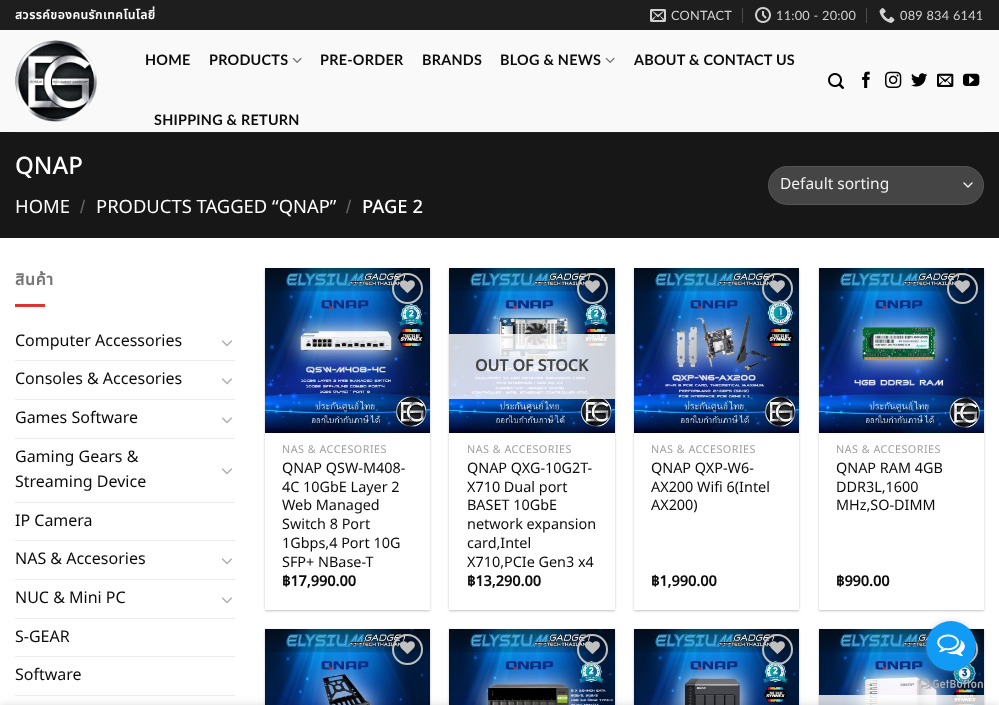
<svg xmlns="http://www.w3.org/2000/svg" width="999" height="705">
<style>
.a{font:bold 12px Noto Sans Thai;letter-spacing:0.6px;fill:#fff}
.b{font:12.75px Lato;letter-spacing:0.25px;fill:#d2d2d2}
.c{font:bold 14.4px Lato;letter-spacing:0.25px;fill:#0c0c0d}
.d{font:500 24px Noto Sans Thai;fill:#fff}
.e{font:18.4px Noto Sans Thai;fill:#fff}
.f{font:18.4px Liberation Sans;fill:#686868}
.g{font:500 18.4px Noto Sans Thai;fill:#fff}
.h{font:15.5px Noto Sans Thai;fill:#f1f1f1}
.i{font:bold 16px Noto Sans Thai;letter-spacing:0.75px;fill:#777}
.j{font:16px Noto Sans Thai;fill:#0c0c0d}
.k{font:10.75px Noto Sans Thai;letter-spacing:0.5px;fill:#a0a0a0}
.l{font:14.4px Noto Sans Thai;fill:#0c0c0d}
.m{font:bold 14.4px Noto Sans Thai;fill:#0c0c0d}
.n{font:bold 16px Noto Sans Thai;fill:#444546}
</style>
<defs>
<clipPath id="clip1"><path d="M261 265h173v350h-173zm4 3h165v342h-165z" clip-rule="evenodd"/></clipPath>
<clipPath id="clip2"><path d="M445 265h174v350h-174zm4 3h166v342h-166z" clip-rule="evenodd"/></clipPath>
<clipPath id="clip3"><path d="M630 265h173v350h-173zm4 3h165v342h-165z" clip-rule="evenodd"/></clipPath>
<clipPath id="clip4"><path d="M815 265h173v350h-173zm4 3h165v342h-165z" clip-rule="evenodd"/></clipPath>
</defs>
<rect width="100%" height="100%" fill="#fff"/>
<path fill="#1e1e1e" d="M0 0h999v30H0z"/>
<image href="1.png" x="650" y="9" width="16" height="13"/>
<path fill="#4b4b4b" d="M742 8h1v15H742z"/>
<image href="2.png" x="755" y="7" width="16" height="16"/>
<path fill="#4b4b4b" d="M866 8h1v15H866z"/>
<image href="3.png" x="879" y="8" width="16" height="15"/>
<path fill="#f9f9f9" d="M0 30h999v102H0z"/>
<image href="4.png" x="15" y="40" width="82" height="82"/>
<image href="5.png" x="292" y="57" width="10" height="6"/>
<image href="5.png" x="605" y="57" width="10" height="6"/>
<image href="6.png" x="828" y="73" width="16" height="16"/>
<image href="7.png" x="862" y="71" width="8" height="17"/>
<image href="8.png" x="885" y="71" width="17" height="17"/>
<image href="9.png" x="911" y="73" width="17" height="14"/>
<image href="10.png" x="937" y="73" width="17" height="14"/>
<image href="11.png" x="963" y="73" width="17" height="13"/>
<path fill="#171717" d="M0 132h999v106H0z"/>
<path fill="#212121" d="M15 132h969v1H15z"/>
<rect fill="#454545" x="768" y="166" width="216" height="39" rx="19.5"/>
<path fill="none" stroke="#fff" stroke-width="1.3" stroke-linecap="round" stroke-linejoin="round" d="M964 183l4 4l4-4"/>
<rect fill="none" stroke="#ffffff17" x="768.5" y="166.5" width="215" height="38" rx="19"/>
<path fill="#d33" d="M15 304h30v3H15z"/>
<image href="12.png" x="221" y="340" width="12" height="7"/>
<path fill="#ececec" d="M15 360h220v1H15z"/>
<image href="12.png" x="221" y="378" width="12" height="7"/>
<path fill="#ececec" d="M15 399h220v1H15z"/>
<image href="12.png" x="221" y="417" width="12" height="7"/>
<path fill="#ececec" d="M15 438h220v1H15z"/>
<image href="12.png" x="221" y="468" width="12" height="7"/>
<path fill="#ececec" d="M15 502h220v1H15z"/>
<path fill="#ececec" d="M15 540h220v1H15z"/>
<image href="12.png" x="221" y="558" width="12" height="7"/>
<path fill="#ececec" d="M15 579h220v1H15z"/>
<image href="12.png" x="221" y="597" width="12" height="7"/>
<path fill="#ececec" d="M15 618h220v1H15z"/>
<path fill="#ececec" d="M15 656h220v1H15z"/>
<path fill="#ececec" d="M15 695h220v1H15z"/>
<g clip-path="url(#clip1)">
<path fill="#0000003d" filter="blur(1px)" d="M265 269h165v342H265z"/>
</g>
<image href="13.png" x="265" y="268" width="165" height="165"/>
<circle fill="none" stroke="#c0c0c0" stroke-width="2" cx="407.5" cy="288.5" r="14.5"/>
<image href="14.png" x="400" y="280" width="15" height="13"/>
<g clip-path="url(#clip2)">
<path fill="#0000003d" filter="blur(1px)" d="M449 269h166v342H449z"/>
</g>
<image href="15.png" x="449" y="268" width="166" height="165"/>
<circle fill="none" stroke="#c0c0c0" stroke-width="2" cx="592.5" cy="288.5" r="14.5"/>
<image href="16.png" x="585" y="280" width="15" height="13"/>
<path fill="#ffffffcf" d="M449 334h166v65H449z"/>
<g clip-path="url(#clip3)">
<path fill="#0000003d" filter="blur(1px)" d="M634 269h165v342H634z"/>
</g>
<image href="17.png" x="634" y="268" width="165" height="165"/>
<circle fill="none" stroke="#c0c0c0" stroke-width="2" cx="777.5" cy="288.5" r="14.5"/>
<image href="18.png" x="770" y="280" width="15" height="13"/>
<g clip-path="url(#clip4)">
<path fill="#0000003d" filter="blur(1px)" d="M819 269h165v342H819z"/>
</g>
<image href="19.png" x="819" y="268" width="165" height="165"/>
<circle fill="none" stroke="#c0c0c0" stroke-width="2" cx="962.5" cy="288.5" r="14.5"/>
<image href="20.png" x="955" y="280" width="15" height="13"/>
<path fill="#0000003d" filter="blur(1px)" d="M265 630h165v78H265z"/>
<image href="21.png" x="265" y="629" width="165" height="76"/>
<circle fill="none" stroke="#c0c0c0" stroke-width="2" cx="407.5" cy="649.5" r="14.5"/>
<image href="22.png" x="400" y="641" width="15" height="13"/>
<path fill="#0000003d" filter="blur(1px)" d="M449 630h166v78H449z"/>
<image href="23.png" x="449" y="629" width="166" height="76"/>
<circle fill="none" stroke="#c0c0c0" stroke-width="2" cx="592.5" cy="649.5" r="14.5"/>
<image href="24.png" x="585" y="641" width="15" height="13"/>
<path fill="#0000003d" filter="blur(1px)" d="M634 630h165v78H634z"/>
<image href="25.png" x="634" y="629" width="165" height="76"/>
<circle fill="none" stroke="#c0c0c0" stroke-width="2" cx="777.5" cy="649.5" r="14.5"/>
<image href="18.png" x="770" y="641" width="15" height="13"/>
<path fill="#0000003d" filter="blur(1px)" d="M819 630h165v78H819z"/>
<image href="26.png" x="819" y="629" width="165" height="76"/>
<circle fill="none" stroke="#c0c0c0" stroke-width="2" cx="962.5" cy="649.5" r="14.5"/>
<path fill="#ffffffcf" d="M819 695h165v10H819z"/>
<image href="28.png" x="919" y="678" width="64" height="11"/>
<rect fill="#88888866" filter="blur(3.5px)" x="926" y="622" width="50" height="50" rx="25"/>
<circle fill="#129bf4" cx="951" cy="646" r="25"/>
<image href="27.png" x="937" y="634" width="28" height="23"/>
<path fill="#00000024" filter="blur(4.5px)" d="M0 705h999v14H0z"/>
<text class="a" x="15" y="19">สวรรค์ของคนรักเทคโนโลยี่</text>
<text class="b" x="671" y="20">CONTACT</text>
<text class="b" x="776" y="20">11:00 - 20:00</text>
<text class="b" x="900" y="20">089 834 6141</text>
<text class="c" x="145" y="65">HOME</text>
<text class="c" x="209" y="65">PRODUCTS</text>
<text class="c" x="320" y="65">PRE-ORDER</text>
<text class="c" x="422" y="65">BRANDS</text>
<text class="c" x="500" y="65">BLOG &amp; NEWS</text>
<text class="c" x="634" y="65">ABOUT &amp; CONTACT US</text>
<text class="c" x="154" y="125">SHIPPING &amp; RETURN</text>
<text class="d" x="15" y="174">QNAP</text>
<text class="e" x="15" y="213">HOME</text>
<text class="f" x="80" y="213">/</text>
<text class="e" x="96" y="213">PRODUCTS TAGGED “QNAP”</text>
<text class="f" x="346" y="213">/</text>
<text class="g" x="362" y="213">PAGE 2</text>
<text class="h" x="780" y="189">Default sorting</text>
<text class="i" x="15" y="285">สินค้า</text>
<text class="j" x="15" y="346">Computer Accessories</text>
<text class="j" x="15" y="384">Consoles &amp; Accesories</text>
<text class="j" x="15" y="423">Games Software</text>
<text class="j" x="15" y="462">Gaming Gears &amp;</text>
<text class="j" x="15" y="487">Streaming Device</text>
<text class="j" x="15" y="526">IP Camera</text>
<text class="j" x="15" y="564">NAS &amp; Accesories</text>
<text class="j" x="15" y="603">NUC &amp; Mini PC</text>
<text class="j" x="15" y="642">S-GEAR</text>
<text class="j" x="15" y="680">Software</text>
<text class="k" x="282" y="453">NAS &amp; ACCESORIES</text>
<text class="l" x="282" y="473">QNAP QSW-M408-</text>
<text class="l" x="282" y="492">4C 10GbE Layer 2</text>
<text class="l" x="282" y="510">Web Managed</text>
<text class="l" x="282" y="529">Switch 8 Port</text>
<text class="l" x="282" y="548">1Gbps,4 Port 10G</text>
<text class="l" x="282" y="567">SFP+ NBase-T</text>
<text class="m" x="282" y="586">฿17,990.00</text>
<text class="n" x="475" y="371">OUT OF STOCK</text>
<text class="k" x="467" y="453">NAS &amp; ACCESORIES</text>
<text class="l" x="467" y="473">QNAP QXG-10G2T-</text>
<text class="l" x="467" y="492">X710 Dual port</text>
<text class="l" x="467" y="510">BASET 10GbE</text>
<text class="l" x="467" y="529">network expansion</text>
<text class="l" x="467" y="548">card,Intel</text>
<text class="l" x="467" y="567">X710,PCIe Gen3 x4</text>
<text class="m" x="467" y="586">฿13,290.00</text>
<text class="k" x="651" y="453">NAS &amp; ACCESORIES</text>
<text class="l" x="651" y="473">QNAP QXP-W6-</text>
<text class="l" x="651" y="492">AX200 Wifi 6(Intel</text>
<text class="l" x="651" y="510">AX200)</text>
<text class="m" x="651" y="586">฿1,990.00</text>
<text class="k" x="836" y="453">NAS &amp; ACCESORIES</text>
<text class="l" x="836" y="473">QNAP RAM 4GB</text>
<text class="l" x="836" y="492">DDR3L,1600</text>
<text class="l" x="836" y="510">MHz,SO-DIMM</text>
<text class="m" x="836" y="586">฿990.00</text>
</svg>
